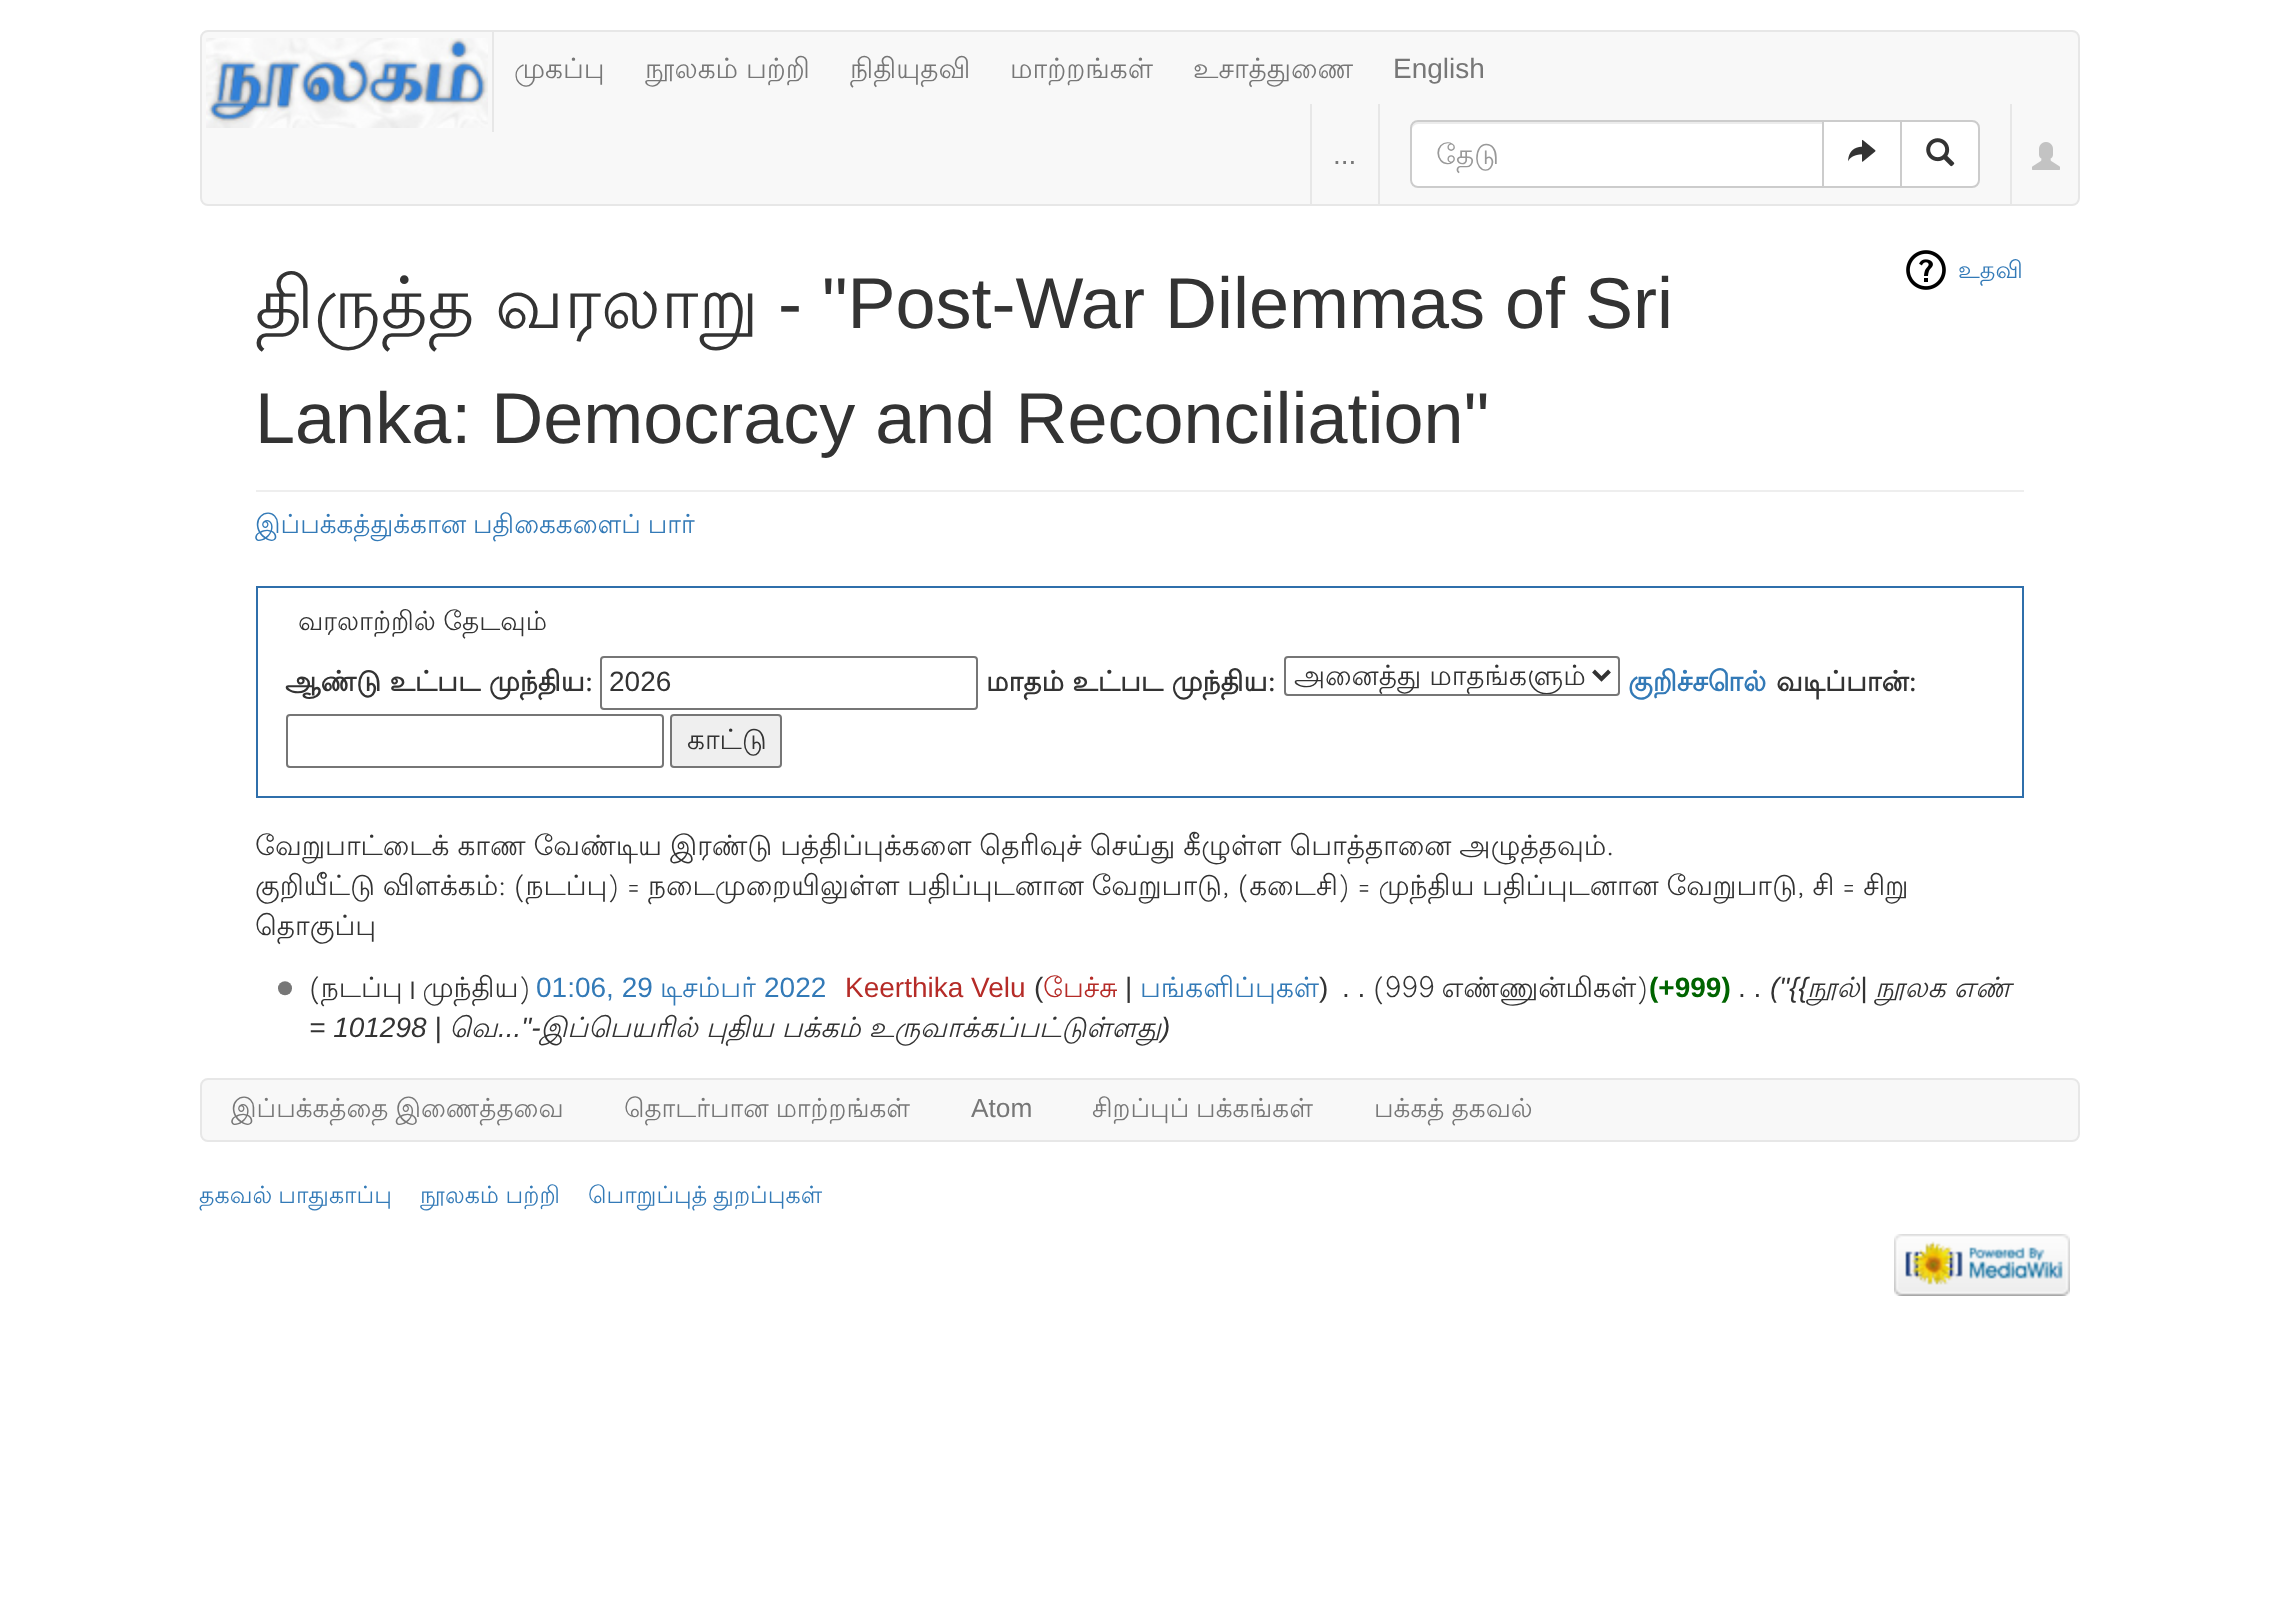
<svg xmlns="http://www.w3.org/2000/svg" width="2278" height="1608">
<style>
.a{font:28px Lohit Tamil;fill:#777}
.b{font:28px Liberation Sans;fill:#777}
.c{font:28px Lohit Tamil;fill:#999}
.d{font:72px Lohit Tamil;fill:#333}
.e{font:72px Liberation Sans;fill:#333}
.f{font:26.3px Lohit Tamil;fill:#337ab7}
.g{font:24px Lohit Tamil;fill:#337ab7}
.h{font:26.5px Lohit Tamil;fill:#333}
.i{font:bold 28px Lohit Tamil;fill:#333}
.j{font:28px Liberation Sans;fill:#333}
.k{font:28px Lohit Tamil;fill:#333}
.l{font:bold 28px Lohit Tamil;fill:#337ab7}
.m{font:28px Liberation Sans;fill:#337ab7}
.n{font:28px Lohit Tamil;fill:#337ab7}
.o{font:28px Liberation Sans;fill:#b52b27}
.p{font:28px Lohit Tamil;fill:#b52b27}
.q{font:bold 28px Liberation Sans;fill:#006400}
.r{font:italic 28px Liberation Sans;fill:#333}
.s{font:italic 28px Lohit Tamil;fill:#333}
.t{font:26.3px Lohit Tamil;fill:#777}
.u{font:26.3px Liberation Sans;fill:#777}
.v{font:23.75px Lohit Tamil;fill:#337ab7}
</style>
<defs>
<clipPath id="clip1"><path d="M1294 658h292v36H1294z"/></clipPath>
</defs>
<rect width="100%" height="100%" fill="#fff"/>
<rect fill="#f8f8f8" stroke="#e7e7e7" stroke-width="2" x="201" y="31" width="1878" height="174" rx="7"/>
<path fill="#e7e7e7" d="M492 32h2v100H492z"/>
<image href="1.png" x="206" y="38" width="282" height="90"/>
<path fill="#e7e7e7" d="M1378 104h2v100H1378z"/>
<path fill="#e7e7e7" d="M1310 104h2v100H1310z"/>
<path fill="#e7e7e7" d="M2010 104h2v100H2010z"/>
<path fill="#fff" d="M1418 120h406v68h-406c-4.5 0-8-3.5-8-8v-52c0-4.5 3.5-8 8-8z"/>
<path fill="#ececec" d="M1418 124h404v-2h-404c-3 0-6 3-6 6v2c0-3 3-6 6-6z"/>
<path fill="none" stroke="#ccc" stroke-width="2" d="M1418 121h405v66h-405c-4 0-7-3-7-7v-52c0-4 3-7 7-7z"/>
<path fill="#fff" stroke="#ccc" stroke-width="2" d="M1823 121h78v66H1823z"/>
<image href="2.png" x="1848" y="139" width="28" height="23"/>
<path fill="#fff" stroke="#ccc" stroke-width="2" d="M1901 121h71c4 0 7 3 7 7v52c0 4-3 7-7 7h-71z"/>
<image href="3.png" x="1926" y="138" width="29" height="29"/>
<image href="4.png" x="2032" y="142" width="28" height="28"/>
<path fill="#eee" d="M256 490h1768v2H256z"/>
<image href="5.png" x="1906" y="250" width="40" height="40"/>
<path fill="none" stroke="#2f6fab" stroke-width="2" d="M257 587h1766v210H257z"/>
<rect fill="none" stroke="#767676" stroke-width="2" x="601" y="657" width="376" height="52" rx="3"/>
<rect fill="none" stroke="#767676" stroke-width="2" x="1285" y="657" width="334" height="38" rx="3"/>
<path fill="none" stroke="#333" stroke-width="4" d="M1593.5 671l8 8l8-8"/>
<rect fill="none" stroke="#767676" stroke-width="2" x="287" y="715" width="376" height="52" rx="3"/>
<rect fill="#efefef" stroke="#767676" stroke-width="2" x="671" y="715" width="110" height="52" rx="3"/>
<image href="6.png" x="278" y="981" width="14" height="15"/>
<rect fill="#f8f8f8" stroke="#e7e7e7" stroke-width="2" x="201" y="1079" width="1878" height="62" rx="7"/>
<image href="7.png" x="1894" y="1234" width="176" height="62"/>
<text class="a" x="514" y="78">முகப்பு</text>
<text class="a" x="645" y="78" word-spacing="-0.5">நூலகம் பற்றி</text>
<text class="a" x="850" y="78">நிதியுதவி</text>
<text class="a" x="1010" y="78">மாற்றங்கள்</text>
<text class="a" x="1193" y="78">உசாத்துணை</text>
<text class="b" x="1393" y="78">English</text>
<text class="b" x="1333" y="164">...</text>
<text class="c" x="1436" y="164">தேடு</text>
<text class="d" x="255" y="328">திருத்த</text>
<text class="d" x="495" y="328">வரலாறு</text>
<text class="e" x="778" y="328">- "Post-War Dilemmas of Sri</text>
<text class="e" x="255" y="443">Lanka: Democracy and Reconciliation"</text>
<text class="f" x="255" y="533" word-spacing="-1">இப்பக்கத்துக்கான பதிகைகளைப் பார்</text>
<text class="g" x="1958" y="278">உதவி</text>
<text class="h" x="298" y="630" word-spacing="-0.5">வரலாற்றில் தேடவும்</text>
<text class="i" x="285" y="691">ஆண்டு உட்பட முந்திய:</text>
<text class="j" x="609" y="691">2026</text>
<text class="i" x="986" y="691">மாதம் உட்பட முந்திய:</text>
<g clip-path="url(#clip1)">
<text class="k" x="1294" y="685" word-spacing="-0.5">அனைத்து மாதங்களும்</text>
</g>
<text class="l" x="1628" y="691">குறிச்சொல்</text>
<text class="i" x="1776" y="691">வடிப்பான்:</text>
<text class="k" x="687" y="749">காட்டு</text>
<text class="k" x="255" y="855" word-spacing="-0.5">வேறுபாட்டைக் காண வேண்டிய இரண்டு பத்திப்புக்களை தெரிவுச் செய்து கீழுள்ள பொத்தானை அழுத்தவும்.</text>
<text class="k" x="255" y="895" word-spacing="-0.7">குறியீட்டு விளக்கம்: (நடப்பு) = நடைமுறையிலுள்ள பதிப்புடனான வேறுபாடு, (கடைசி) = முந்திய பதிப்புடனான வேறுபாடு, சி = சிறு</text>
<text class="k" x="255" y="935">தொகுப்பு</text>
<text class="k" x="309" y="997" word-spacing="-2">(நடப்பு | முந்திய)</text>
<text class="m" x="536" y="997">01:06, 29</text>
<text class="n" x="660" y="997">டிசம்பர்</text>
<text class="m" x="764" y="997">2022</text>
<text class="o" x="845" y="997">Keerthika Velu</text>
<text class="j" x="1034" y="997">(</text>
<text class="p" x="1043" y="997">பேச்சு</text>
<text class="j" x="1125" y="997">|</text>
<text class="n" x="1140" y="997">பங்களிப்புகள்</text>
<text class="j" x="1319" y="997">)</text>
<text class="j" x="1342" y="997">. .</text>
<text class="k" x="1373" y="997" word-spacing="-2">(999 எண்ணுன்மிகள்)</text>
<text class="q" x="1649" y="997">(+999)</text>
<text class="j" x="1738" y="997">. .</text>
<text class="r" x="1770" y="997">("{{</text>
<text class="s" x="1807" y="997">நூல்</text>
<text class="r" x="1860" y="997">|</text>
<text class="s" x="1875" y="997" word-spacing="-0.5">நூலக எண்</text>
<text class="r" x="309" y="1037">= 101298 |</text>
<text class="s" x="449" y="1037">வெ</text>
<text class="r" x="498" y="1037">..."-</text>
<text class="s" x="540" y="1037" word-spacing="-0.5">இப்பெயரில் புதிய பக்கம் உருவாக்கப்பட்டுள்ளது</text>
<text class="r" x="1161" y="1037">)</text>
<text class="t" x="231" y="1117" word-spacing="-1">இப்பக்கத்தை இணைத்தவை</text>
<text class="t" x="624" y="1117" word-spacing="-1">தொடர்பான மாற்றங்கள்</text>
<text class="u" x="971" y="1117">Atom</text>
<text class="t" x="1092" y="1117" word-spacing="-1">சிறப்புப் பக்கங்கள்</text>
<text class="t" x="1374" y="1117" word-spacing="-0.5">பக்கத் தகவல்</text>
<text class="v" x="199" y="1203" word-spacing="-1">தகவல் பாதுகாப்பு</text>
<text class="v" x="420" y="1203" word-spacing="-0.5">நூலகம் பற்றி</text>
<text class="v" x="588" y="1203" word-spacing="-1">பொறுப்புத் துறப்புகள்</text>
</svg>
